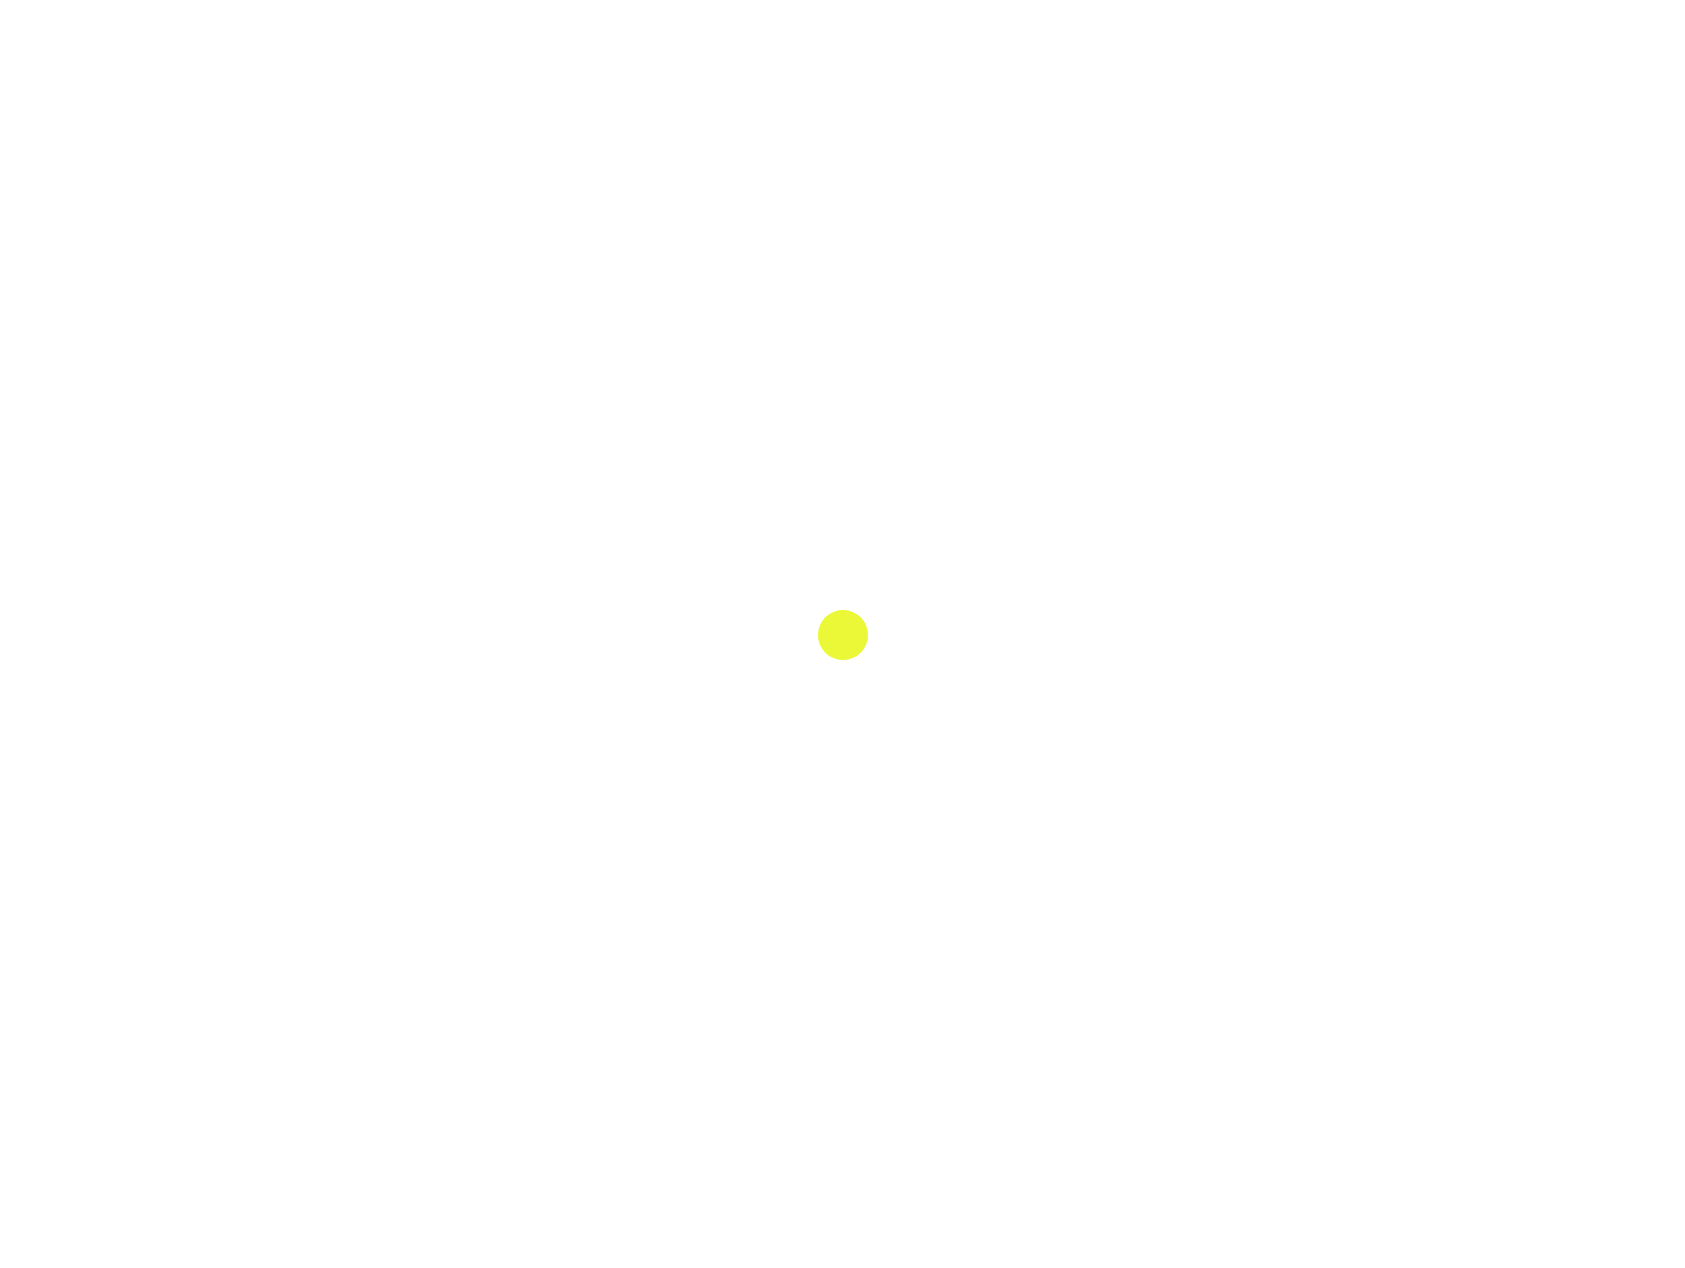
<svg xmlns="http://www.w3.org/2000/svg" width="1685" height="1268">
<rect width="100%" height="100%" fill="#fff"/>
<circle fill="#f1fa71" cx="843" cy="635" r="25"/>
<circle fill="#e8f71399" cx="843" cy="635" r="25"/>
</svg>
